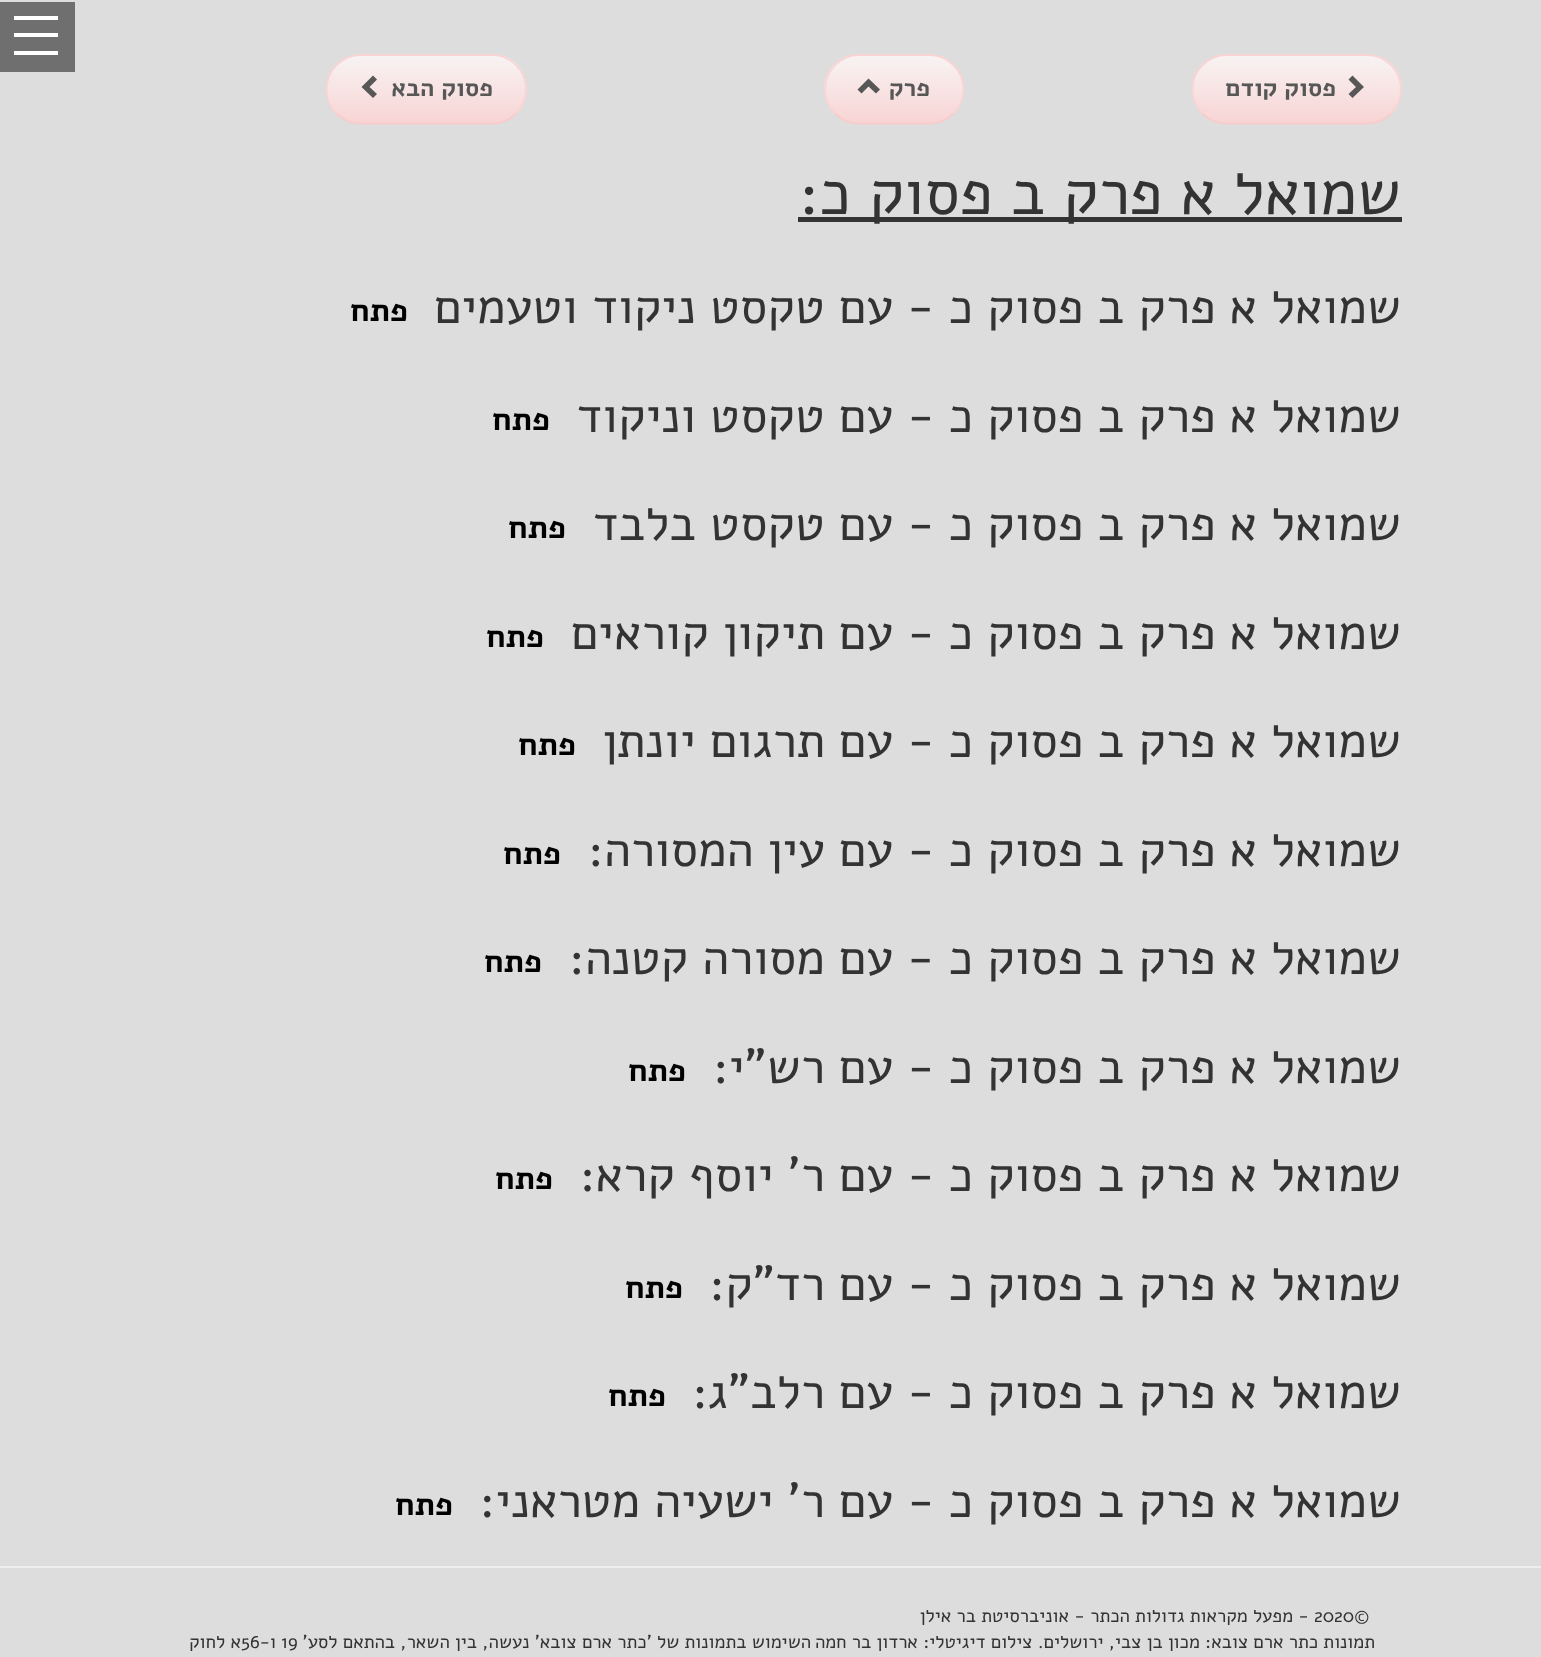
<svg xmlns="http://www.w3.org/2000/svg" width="1541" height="1657">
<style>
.a{font:bold 24.5px Alef;direction:rtl;fill:#575757}
.b{font:63px Alef;direction:rtl;fill:#333}
.c{font:49px Alef;direction:rtl;fill:#333}
.d{font:bold 32px Alef;direction:rtl;fill:#000}
.e{font:18.7px Alef;fill:#333}
.f{font:18.7px Alef;direction:rtl;fill:#333}
</style>
<defs>
<clipPath id="clip1"><rect x="1192" y="54" width="210" height="70" rx="35"/></clipPath>
<linearGradient id="g1" gradientUnits="userSpaceOnUse" x1="1297" y1="56" x2="1297" y2="123"><stop offset="0" stop-color="#f8f3f3"/><stop offset="1" stop-color="#f8d4d4"/></linearGradient>
<clipPath id="clip2"><rect x="824" y="54" width="140" height="70" rx="35"/></clipPath>
<linearGradient id="g2" gradientUnits="userSpaceOnUse" x1="894" y1="56" x2="894" y2="123"><stop offset="0" stop-color="#f8f3f3"/><stop offset="1" stop-color="#f8d4d4"/></linearGradient>
<clipPath id="clip3"><rect x="326" y="54" width="201" height="70" rx="35"/></clipPath>
<linearGradient id="g3" gradientUnits="userSpaceOnUse" x1="426" y1="56" x2="426" y2="123"><stop offset="0" stop-color="#f8f3f3"/><stop offset="1" stop-color="#f8d4d4"/></linearGradient>
</defs>
<rect width="100%" height="100%" fill="#ddd"/>
<path fill="#6f6f6f" d="M0 2h75v70H0z"/>
<path fill="#fff" d="M14 33h44v4H14z"/>
<path fill="#fff" d="M14 16h44v4H14z"/>
<path fill="#fff" d="M14 51h44v4H14z"/>
<rect fill="#f8d4d4" x="1192" y="54" width="210" height="70" rx="35"/>
<g clip-path="url(#clip1)">
<path fill="url(#g1)" d="M1192 56h210v67H1192z"/>
</g>
<path fill="none" stroke="#f8cccc" stroke-width="1.8" d="M1391 113.5c-6.5 6.5-15 10-24 10h-140c-9.5 0-18-3.5-24.5-10"/>
<path fill="none" stroke="#f8d4d4" stroke-width="1.8" d="M1202.5 113.5c-6.5-6.5-10-15-10-24c0-9.5 3.5-18 10-24.5c6.5-6.5 15-10 24.5-10h140c9 0 17.5 3.5 24 10c6.5 6.5 10 15 10 24c0 9.5-3.5 18-10 24.5"/>
<path fill="#575757" d="M1364 87l-11.5 11l-4-4l7.5-7l-7.5-7.5l4-4z"/>
<rect fill="#f8d4d4" x="824" y="54" width="140" height="70" rx="35"/>
<g clip-path="url(#clip2)">
<path fill="url(#g2)" d="M824 56h140v67H824z"/>
</g>
<path fill="none" stroke="#f8cccc" stroke-width="1.8" d="M953.5 113.5c-6.5 6.5-15 10-24.5 10h-70c-9 0-17.5-3.5-24-10"/>
<path fill="none" stroke="#f8d4d4" stroke-width="1.8" d="M835 113.5c-6.5-6.5-10-15-10-24c0-9.5 3.5-18 10-24.5c6.5-6.5 15-10 24-10h70c9.5 0 18 3.5 24.5 10c6.5 6.5 10 15 10 24c0 9.5-3.5 18-10 24.5"/>
<path fill="#575757" d="M880 89.5l-4 4l-7.5-7l-7 7l-4-4l11-11z"/>
<rect fill="#f8d4d4" x="326" y="54" width="201" height="70" rx="35"/>
<g clip-path="url(#clip3)">
<path fill="url(#g3)" d="M326 56h201v67H326z"/>
</g>
<path fill="none" stroke="#f8cccc" stroke-width="1.8" d="M516 113.5c-6.5 6.5-15 10-24 10h-131.5c-9 0-17.5-3.5-24-10"/>
<path fill="none" stroke="#f8d4d4" stroke-width="1.8" d="M336.5 113.5c-6.5-6.5-10-15-10-24c0-9.5 3.5-18 10-24.5c6.5-6.5 15-10 24-10h131.5c9 0 17.5 3.5 24 10c6.5 6.5 10 15 10 24c0 9.5-3.5 18-10 24.5"/>
<path fill="#575757" d="M377 79.5l-7.5 7.5l7.5 7l-4 4l-11.5-11l11.5-11.5z"/>
<path fill="#333" d="M798 217h604v5H798z"/>
<path fill="#eee" d="M0 1566h1541v2H0z"/>
<text class="a" x="1336" y="96">פסוק קודם</text>
<text class="a" x="930" y="96">פרק</text>
<text class="a" x="493" y="96">פסוק הבא</text>
<text class="b" x="1401" y="214">שמואל א פרק ב פסוק כ:</text>
<text class="c" x="1401" y="323">שמואל א פרק ב פסוק כ - עם טקסט ניקוד וטעמים</text>
<text class="d" x="408" y="321">פתח</text>
<text class="c" x="1401" y="432">שמואל א פרק ב פסוק כ - עם טקסט וניקוד</text>
<text class="d" x="550" y="430">פתח</text>
<text class="c" x="1401" y="540">שמואל א פרק ב פסוק כ - עם טקסט בלבד</text>
<text class="d" x="566" y="538">פתח</text>
<text class="c" x="1401" y="649">שמואל א פרק ב פסוק כ - עם תיקון קוראים</text>
<text class="d" x="544" y="647">פתח</text>
<text class="c" x="1401" y="757">שמואל א פרק ב פסוק כ - עם תרגום יונתן</text>
<text class="d" x="576" y="755">פתח</text>
<text class="c" x="1401" y="866">שמואל א פרק ב פסוק כ - עם עין המסורה:</text>
<text class="d" x="561" y="864">פתח</text>
<text class="c" x="1401" y="974">שמואל א פרק ב פסוק כ - עם מסורה קטנה:</text>
<text class="d" x="542" y="972">פתח</text>
<text class="c" x="1401" y="1083">שמואל א פרק ב פסוק כ - עם רש"י:</text>
<text class="d" x="686" y="1081">פתח</text>
<text class="c" x="1401" y="1191">שמואל א פרק ב פסוק כ - עם ר' יוסף קרא:</text>
<text class="d" x="553" y="1189">פתח</text>
<text class="c" x="1401" y="1300">שמואל א פרק ב פסוק כ - עם רד"ק:</text>
<text class="d" x="683" y="1298">פתח</text>
<text class="c" x="1401" y="1408">שמואל א פרק ב פסוק כ - עם רלב"ג:</text>
<text class="d" x="666" y="1406">פתח</text>
<text class="c" x="1401" y="1517">שמואל א פרק ב פסוק כ - עם ר' ישעיה מטראני:</text>
<text class="d" x="453" y="1515">פתח</text>
<text class="e" x="1314" y="1622">2020©</text>
<text class="f" x="1309" y="1622">- מפעל מקראות גדולות הכתר - אוניברסיטת בר אילן</text>
<text class="f" x="1375" y="1648">תמונות כתר ארם צובא: מכון בן צבי, ירושלים. צילום דיגיטלי: ארדון בר חמה</text>
<text class="f" x="811" y="1648">השימוש בתמונות של 'כתר ארם צובא' נעשה, בין השאר, בהתאם לסע'</text>
<text class="e" x="281" y="1648">19</text>
<text class="f" x="276" y="1648">ו-</text>
<text class="e" x="241" y="1648">56</text>
<text class="f" x="241" y="1648">א לחוק</text>
</svg>
